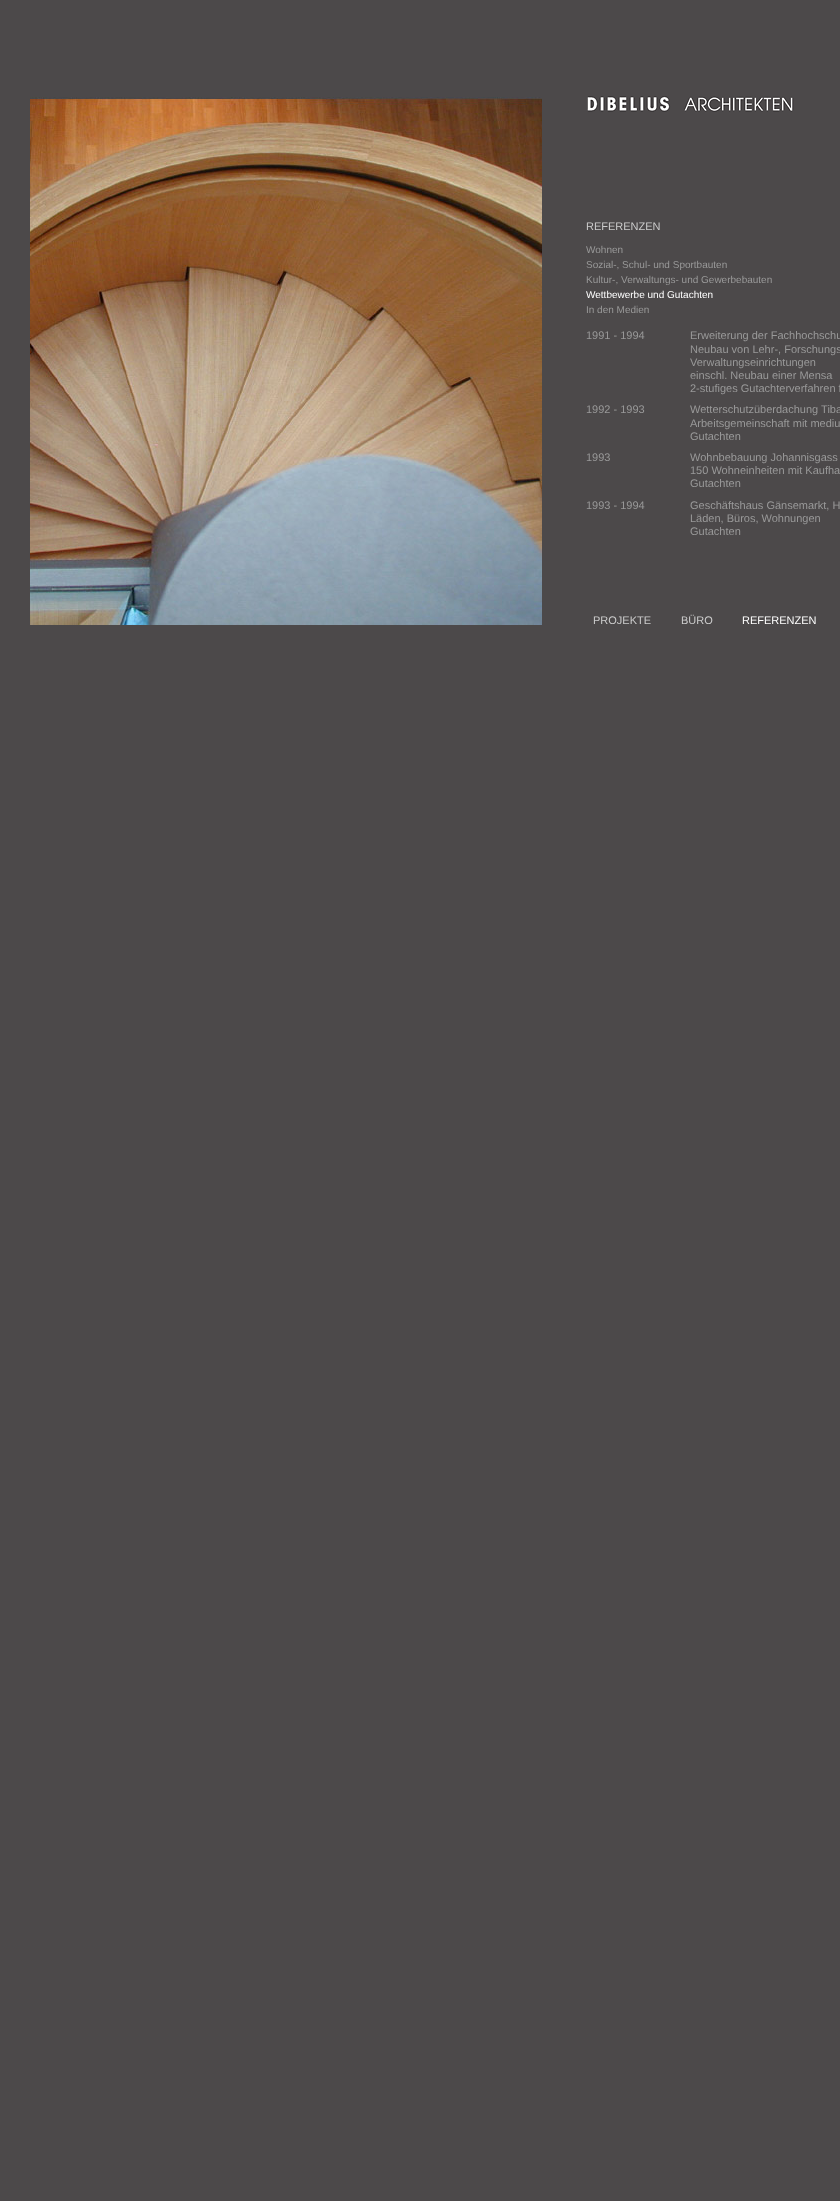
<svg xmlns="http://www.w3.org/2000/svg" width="840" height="2201">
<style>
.a{font:11px Liberation Sans;fill:#ccc}
.b{font:10px Liberation Sans;fill:#999}
.c{font:10px Liberation Sans;fill:#fff}
.d{font:11px Liberation Sans;fill:#999}
.e{font:11px Liberation Sans;fill:#fff}
</style>
<rect width="100%" height="100%" fill="#4c494a"/>
<image href="1.png" x="30" y="97" width="512" height="528"/>
<image href="2.png" x="587" y="96" width="207" height="16"/>
<text class="a" x="586" y="230">REFERENZEN</text>
<text class="b" x="586" y="253">Wohnen</text>
<text class="b" x="586" y="268">Sozial-, Schul- und Sportbauten</text>
<text class="b" x="586" y="283">Kultur-, Verwaltungs- und Gewerbebauten</text>
<text class="c" x="586" y="298">Wettbewerbe und Gutachten</text>
<text class="b" x="586" y="313">In den Medien</text>
<text class="d" x="586" y="339">1991 - 1994</text>
<text class="d" x="690" y="339">Erweiterung der Fachhochschu</text>
<text class="d" x="690" y="353">Neubau von Lehr-, Forschungs</text>
<text class="d" x="690" y="366">Verwaltungseinrichtungen</text>
<text class="d" x="690" y="379">einschl. Neubau einer Mensa</text>
<text class="d" x="690" y="392">2-stufiges Gutachterverfahren f</text>
<text class="d" x="586" y="413">1992 - 1993</text>
<text class="d" x="690" y="413">Wetterschutzüberdachung Tiba</text>
<text class="d" x="690" y="427">Arbeitsgemeinschaft mit mediu</text>
<text class="d" x="690" y="440">Gutachten</text>
<text class="d" x="586" y="461">1993</text>
<text class="d" x="690" y="461">Wohnbebauung Johannisgass</text>
<text class="d" x="690" y="474">150 Wohneinheiten mit Kaufha</text>
<text class="d" x="690" y="487">Gutachten</text>
<text class="d" x="586" y="509">1993 - 1994</text>
<text class="d" x="690" y="509">Geschäftshaus Gänsemarkt, H</text>
<text class="d" x="690" y="522">Läden, Büros, Wohnungen</text>
<text class="d" x="690" y="535">Gutachten</text>
<text class="a" x="593" y="624">PROJEKTE</text>
<text class="a" x="681" y="624">BÜRO</text>
<text class="e" x="742" y="624">REFERENZEN</text>
</svg>
